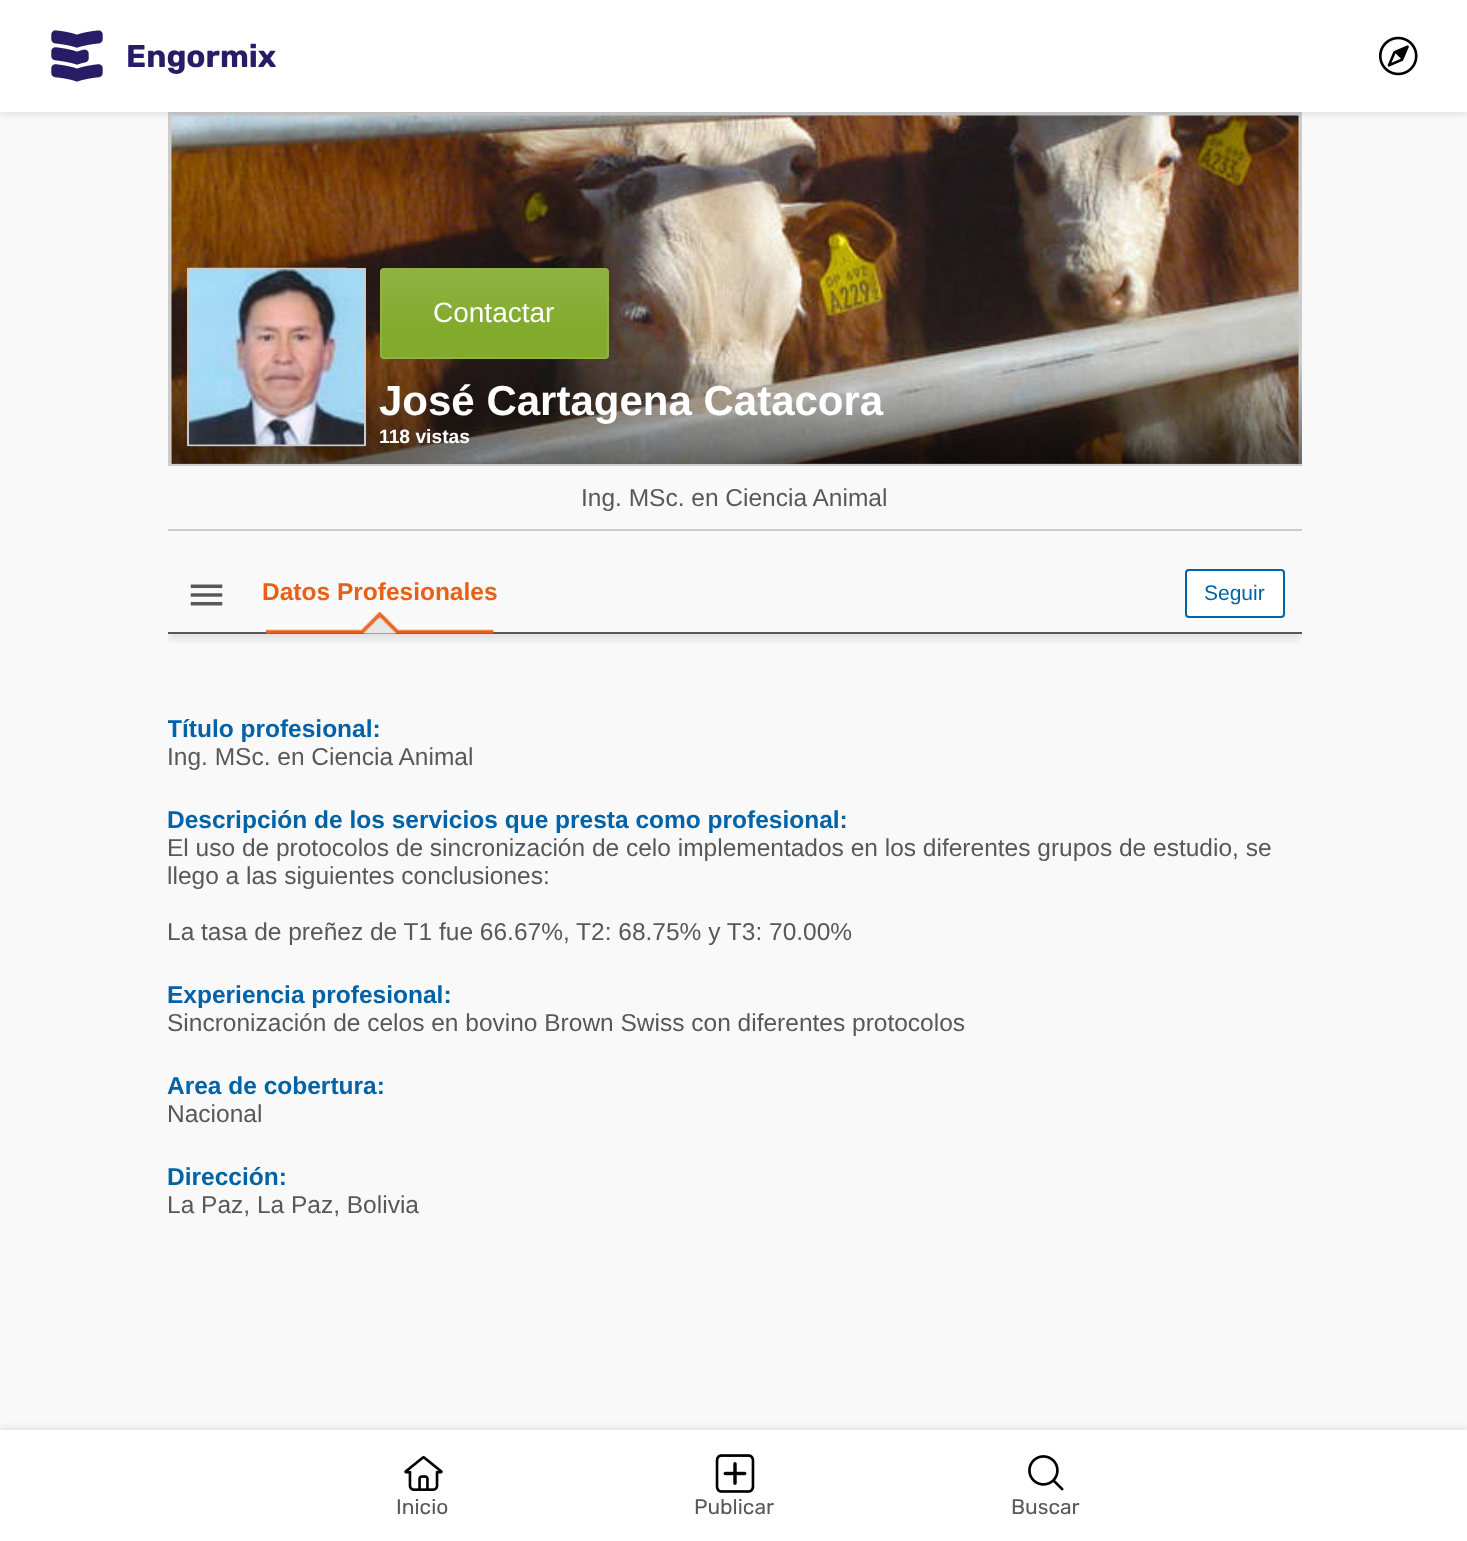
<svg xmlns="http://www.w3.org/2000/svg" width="1467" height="1541">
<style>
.a{font:bold 31.5px Rubik;fill:#271d67}
.b{font:21px Rubik;fill:#58585a}
.c{font:28px Liberation Sans;fill:#fff}
.d{font:bold 42px Liberation Sans;fill:#fff}
.e{font:bold 19.25px Liberation Sans;fill:#fff}
.f{font:24.5px Liberation Sans;fill:#58585a}
.g{font:bold 24.5px Liberation Sans;fill:#e96014}
.h{font:21px Liberation Sans;fill:#0062a7}
.i{font:bold 24.5px Liberation Sans;fill:#0062a7}
</style>
<defs>
<clipPath id="clip1"><path d="M168 112h1134v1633H168z"/></clipPath>
<linearGradient id="g1" gradientUnits="userSpaceOnUse" x1="1043" y1="360" x2="1043" y2="466"><stop offset="0" stop-color="#000" stop-opacity="0"/><stop offset="1" stop-color="#000" stop-opacity="0.51"/></linearGradient>
<clipPath id="clip2"><rect x="380" y="268" width="229" height="91" rx="4"/></clipPath>
<linearGradient id="g2" gradientUnits="userSpaceOnUse" x1="494" y1="270" x2="494" y2="357"><stop offset="0" stop-color="#8fb244"/><stop offset="0.68" stop-color="#82ab2c"/></linearGradient>
<clipPath id="clip3"><path d="M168 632h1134v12H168z"/></clipPath>
<clipPath id="clip4"><path d="M168 679h1134v700H168z"/></clipPath>
</defs>
<rect width="100%" height="100%" fill="#f9f9f9"/>
<g clip-path="url(#clip1)">
<path fill="none" stroke="#ccc" stroke-width="2" d="M169 113h1136v352H169z"/>
</g>
<path fill="#ccc" d="M170 114h1132v350H170z"/>
<image href="6.png" x="171" y="115" width="1128" height="349"/>
<path fill="#0000001a" filter="blur(3.5px)" d="M0 2h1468v112H0z"/>
<path fill="#fff" d="M0 0h1467v112H0z"/>
<image href="1.png" x="51" y="30" width="52" height="52"/>
<image href="2.png" x="1379" y="36" width="39" height="40"/>
<path fill="#0000001a" filter="blur(3.5px)" d="M0 1428h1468v112H0z"/>
<path fill="#fff" d="M0 1430h1467v111H0z"/>
<image href="3.png" x="404" y="1456" width="39" height="35"/>
<image href="4.png" x="715" y="1454" width="40" height="39"/>
<image href="5.png" x="1028" y="1455" width="36" height="36"/>
<path fill="url(#g1)" d="M172 364h1130v100H172z"/>
<image href="7.png" x="188" y="267" width="177" height="180"/>
<path fill="none" stroke="#ccc" stroke-width="2" d="M188 269h177v176H188z"/>
<image href="8.png" x="189" y="269" width="175" height="176"/>
<g clip-path="url(#clip2)">
<path fill="url(#g2)" d="M380 270h229v87H380z"/>
</g>
<rect fill="none" stroke="#8fb244" stroke-width="2" x="381" y="269" width="227" height="89" rx="3"/>
<path fill="#ccc" d="M168 529h1134v2H168z"/>
<image href="9.png" x="190" y="584" width="33" height="22"/>
<g clip-path="url(#clip3)">
<path fill="#58585a" filter="blur(6px)" d="M168 632h1134v2H168z"/>
</g>
<path fill="#58585a" d="M168 632h1134v2H168z"/>
<image href="10.png" x="266" y="612" width="228" height="22"/>
<rect fill="#fff" stroke="#0062a7" stroke-width="2" x="1186" y="570" width="98" height="47" rx="3"/>
<text class="a" x="126" y="67">Engormix</text>
<text class="b" x="396" y="1514">Inicio</text>
<text class="b" x="694" y="1514">Publicar</text>
<text class="b" x="1011" y="1514">Buscar</text>
<text class="c" x="433" y="322">Contactar</text>
<text class="d" x="379" y="415">José Cartagena Catacora</text>
<text class="e" x="379" y="443">118 vistas</text>
<text class="f" x="581" y="506">Ing. MSc. en Ciencia Animal</text>
<text class="g" x="262" y="600">Datos Profesionales</text>
<text class="h" x="1204" y="600">Seguir</text>
<g clip-path="url(#clip4)">
<text class="i" x="167" y="737">Título profesional:</text>
</g>
<text class="f" x="167" y="765">Ing. MSc. en Ciencia Animal</text>
<text class="i" x="167" y="828">Descripción de los servicios que presta como profesional:</text>
<text class="f" x="167" y="856">El uso de protocolos de sincronización de celo implementados en los diferentes grupos de estudio, se</text>
<text class="f" x="167" y="884">llego a las siguientes conclusiones:</text>
<text class="f" x="167" y="940">La tasa de preñez de T1 fue 66.67%, T2: 68.75% y T3: 70.00%</text>
<text class="i" x="167" y="1003">Experiencia profesional:</text>
<text class="f" x="167" y="1031">Sincronización de celos en bovino Brown Swiss con diferentes protocolos</text>
<text class="i" x="167" y="1094">Area de cobertura:</text>
<text class="f" x="167" y="1122">Nacional</text>
<text class="i" x="167" y="1185">Dirección:</text>
<text class="f" x="167" y="1213">La Paz, La Paz, Bolivia</text>
</svg>
